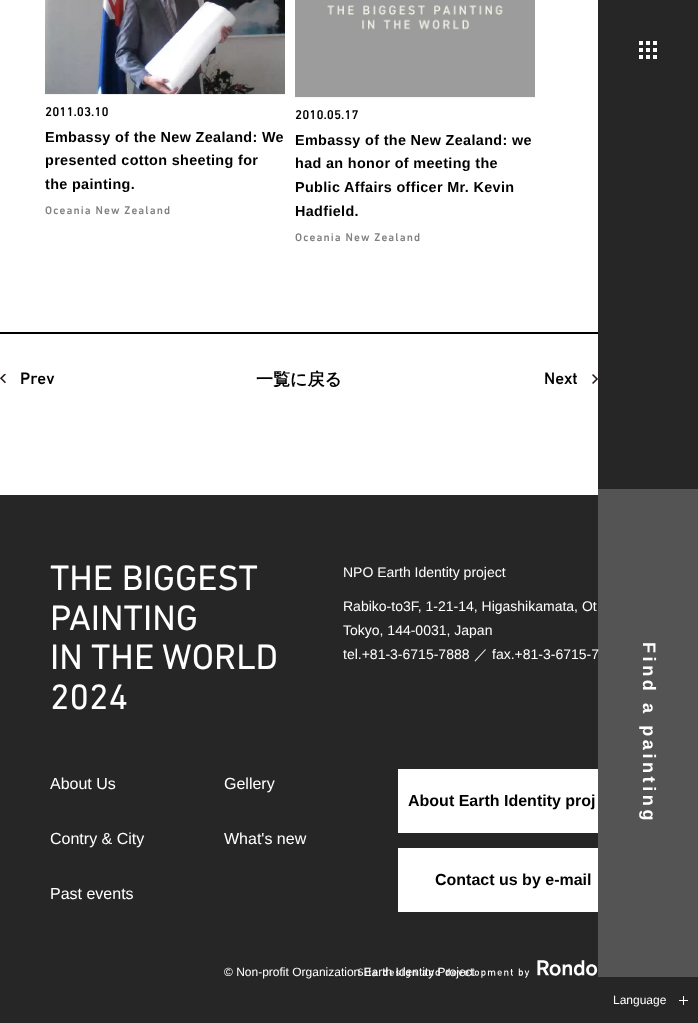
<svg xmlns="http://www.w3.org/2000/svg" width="698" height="1023">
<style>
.a{font:500 13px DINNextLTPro;fill:#000}
.b{font:bold 14.4px Liberation Sans;letter-spacing:0.35px;fill:#000}
.c{font:500 11.25px DINNextLTPro;letter-spacing:1.1px;fill:#808080}
.d{font:500 17px DINNextLTPro;fill:#000}
.e{font:bold 17px WenQuanYi Zen Hei;fill:#000}
.f{font:36px DINNextLTPro;fill:#fff}
.g{font:14px Liberation Sans;fill:#fff}
.h{font:500 14px WenQuanYi Zen Hei;fill:#fff}
.i{font:16px Liberation Sans;fill:#fff}
.j{font:bold 16px Liberation Sans;fill:#000}
.k{font:12px Liberation Sans;fill:#fff}
.l{font:bold 18px Liberation Sans;letter-spacing:3.6px;fill:#fff}
</style>
<rect width="100%" height="100%" fill="#fff"/>
<image href="1.png" x="45" y="0" width="240" height="95"/>
<image href="2.png" x="295" y="0" width="240" height="98"/>
<path fill="#000" d="M0 332h598v2H0z"/>
<image href="3.png" x="0" y="374" width="6" height="10"/>
<image href="4.png" x="592" y="374" width="6" height="10"/>
<path fill="#262626" d="M0 495h698v528H0z"/>
<path fill="#fff" d="M398 769h200v64H398z"/>
<path fill="#fff" d="M398 848h200v64H398z"/>
<image href="5.png" x="358" y="960" width="240" height="18"/>
<path fill="#262626" d="M598 0h100v489H598z"/>
<path fill="#fff" d="M639 41h4v4H639z"/>
<path fill="#fff" d="M646 41h4v4H646z"/>
<path fill="#fff" d="M653 41h4v4H653z"/>
<path fill="#fff" d="M639 48h4v4H639z"/>
<path fill="#fff" d="M646 48h4v4H646z"/>
<path fill="#fff" d="M653 48h4v4H653z"/>
<path fill="#fff" d="M639 55h4v4H639z"/>
<path fill="#fff" d="M646 55h4v4H646z"/>
<path fill="#fff" d="M653 55h4v4H653z"/>
<path fill="#545454" d="M598 489h100v488H598z"/>
<path fill="#fff" d="M679 1000h9v1H679z"/>
<path fill="#fff" d="M683 996h1v9H683z"/>
<text class="a" x="45" y="116">2011.03.10</text>
<text class="b" x="45" y="142">Embassy of the New Zealand: We</text>
<text class="b" x="45" y="165">presented cotton sheeting for</text>
<text class="b" x="45" y="189">the painting.</text>
<text class="c" x="45" y="214">Oceania New Zealand</text>
<text class="a" x="295" y="119">2010.05.17</text>
<text class="b" x="295" y="145">Embassy of the New Zealand: we</text>
<text class="b" x="295" y="168">had an honor of meeting the</text>
<text class="b" x="295" y="192">Public Affairs officer Mr. Kevin</text>
<text class="b" x="295" y="216">Hadfield.</text>
<text class="c" x="295" y="241">Oceania New Zealand</text>
<text class="d" x="20" y="384">Prev</text>
<text class="e" x="256" y="385">一覧に戻る</text>
<text class="d" x="544" y="384">Next</text>
<text class="f" x="50" y="590">THE BIGGEST</text>
<text class="f" x="50" y="630">PAINTING</text>
<text class="f" x="50" y="669">IN THE WORLD</text>
<text class="f" x="50" y="709">2024</text>
<text class="g" x="343" y="577">NPO Earth Identity project</text>
<text class="g" x="343" y="611">Rabiko-to3F, 1-21-14, Higashikamata, Ot</text>
<text class="g" x="343" y="635">Tokyo, 144-0031, Japan</text>
<text class="g" x="343" y="659">tel.+81-3-6715-7888</text>
<text class="h" x="474" y="659">／</text>
<text class="g" x="492" y="659">fax.+81-3-6715-7</text>
<text class="i" x="50" y="789">About Us</text>
<text class="i" x="224" y="789">Gellery</text>
<text class="i" x="50" y="844">Contry &amp; City</text>
<text class="i" x="224" y="844">What's new</text>
<text class="i" x="50" y="899">Past events</text>
<text class="j" x="408" y="806">About Earth Identity proj</text>
<text class="j" x="435" y="885">Contact us by e-mail</text>
<text class="k" x="224" y="976">© Non-profit Organization Earth Identity Project</text>
<text class="l" x="643" y="642" transform="rotate(90 643 642)">Find a painting</text>
<text class="k" x="613" y="1004">Language</text>
</svg>
